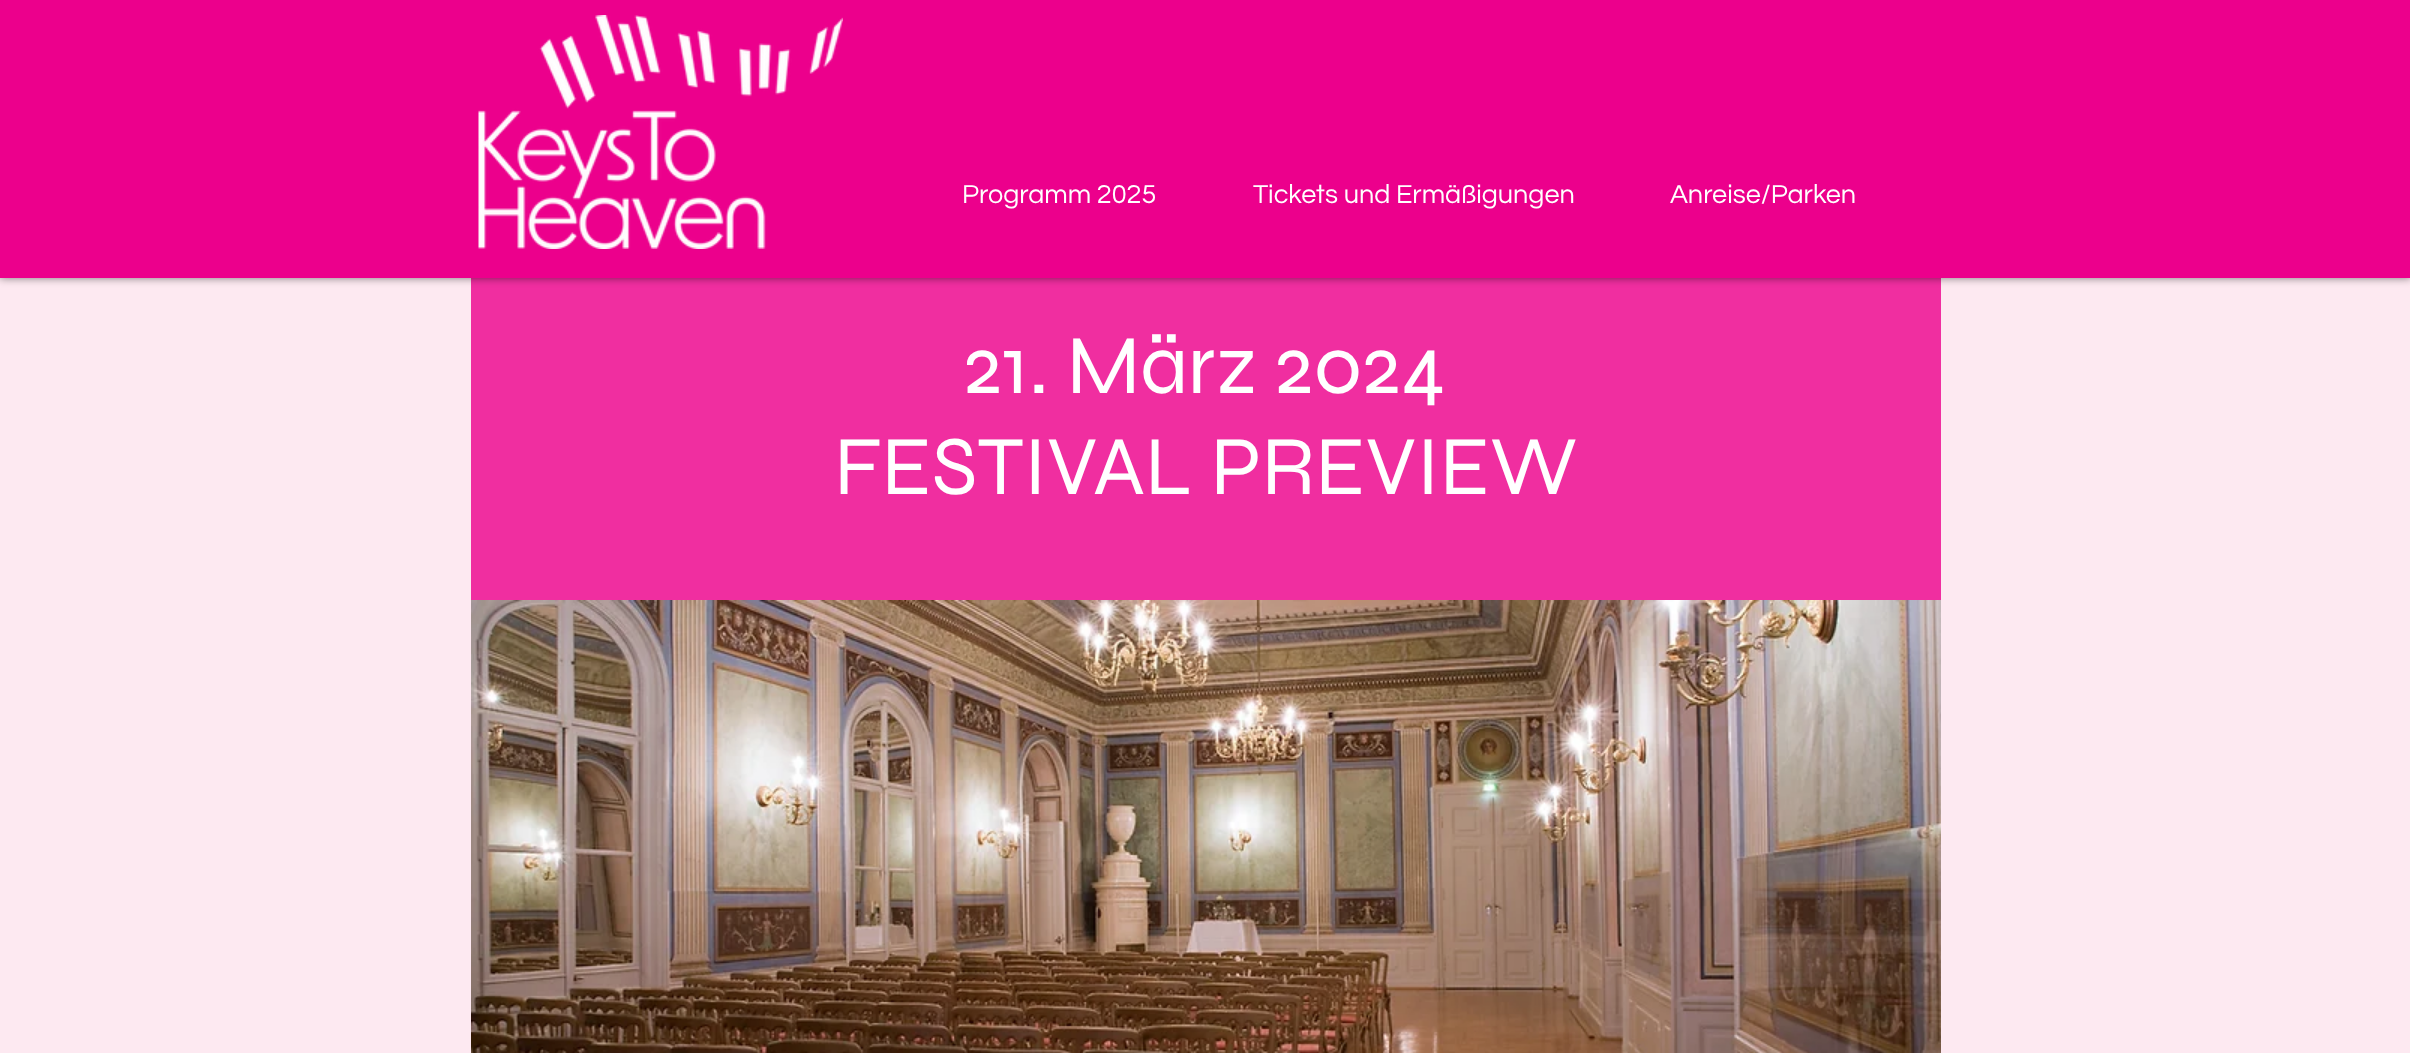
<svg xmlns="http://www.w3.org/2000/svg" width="2410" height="1053">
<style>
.a{font:27px Questrial;fill:#fff}
.b{font:84px Syne;fill:#fff}
</style>
<rect width="100%" height="100%" fill="#fde9f1"/>
<path fill="#f02ea0" d="M471 278h1470v322H471z"/>
<path fill="#00000080" filter="blur(4px)" d="M0 0h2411v278H0z"/>
<path fill="#ec008c" d="M0 0h2410v278H0z"/>
<image href="1.png" x="478" y="15" width="365" height="234"/>
<image href="2.png" x="471" y="600" width="1470" height="453"/>
<text class="a" x="962" y="203">Programm 2025</text>
<text class="a" x="1253" y="203">Tickets und Ermäßigungen</text>
<text class="a" x="1670" y="203">Anreise/Parken</text>
<text class="b" x="964" y="393">21. März 2024</text>
<text class="b" x="834" y="494">FESTIVAL PREVIEW</text>
</svg>
